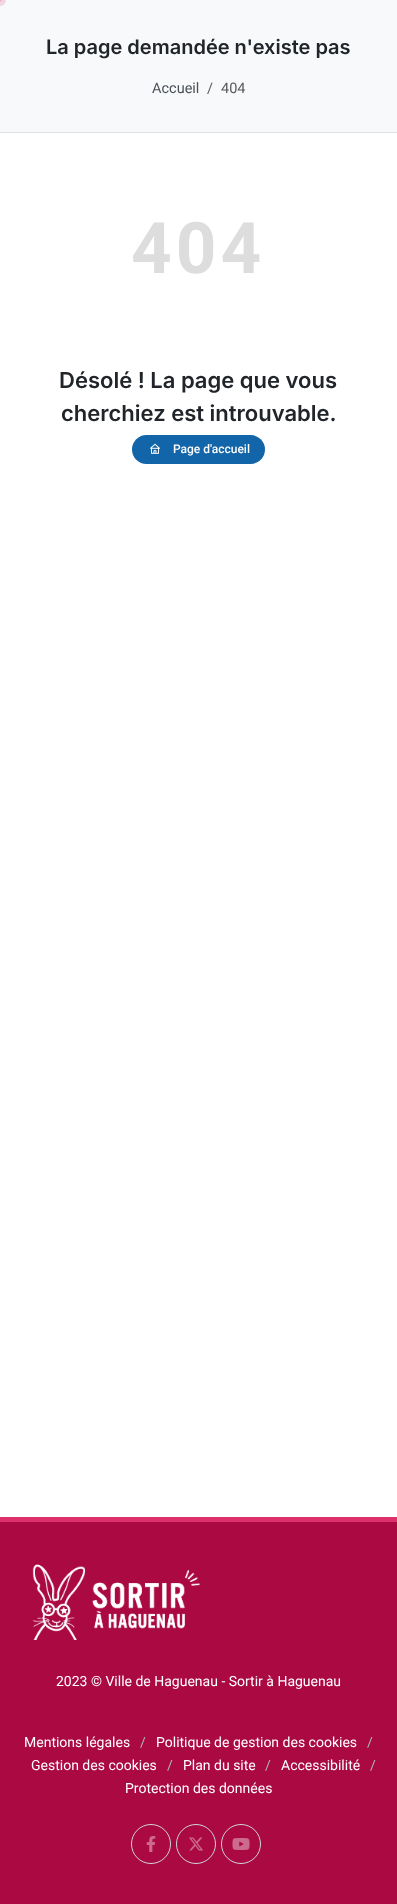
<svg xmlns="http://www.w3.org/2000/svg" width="397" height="1904">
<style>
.a{font:600 20px Inter;fill:#212529}
.b{font:14.5px Roboto;fill:#495057}
.c{font:14.5px Roboto;fill:#575a5d}
.d{font:bold 71px Roboto;letter-spacing:4px;fill:#ddd}
.e{font:600 22px Inter;fill:#212529}
.f{font:500 12px Roboto;fill:#fff}
.g{font:14px Roboto;fill:#fff}
.h{font:14px Roboto;fill:#adb5bd}
</style>
<rect width="100%" height="100%" fill="#fff"/>
<path fill="#f8f9fa" d="M0 0h397v132H0z"/>
<circle fill="#f3d5e1" cx="0" cy="0" r="2"/>
<circle fill="#d60b5126" cx="0" cy="0" r="6"/>
<path fill="#dfe0e1" d="M0 132h397v1H0z"/>
<rect fill="#1265a8" x="132" y="435" width="133" height="29" rx="14.5"/>
<image href="1.png" x="150" y="443" width="10" height="11"/>
<path fill="#dc306b" d="M0 1517h397v5H0z"/>
<path fill="#ab0941" d="M0 1522h397v382H0z"/>
<image href="2.png" x="32" y="1564" width="168" height="76"/>
<circle fill="none" stroke="#ced4da" cx="151" cy="1844" r="19.5"/>
<image href="3.png" x="146" y="1836" width="10" height="16"/>
<circle fill="none" stroke="#ced4da" cx="196" cy="1844" r="19.5"/>
<image href="4.png" x="189" y="1837" width="14" height="14"/>
<circle fill="none" stroke="#ced4da" cx="241" cy="1844" r="19.5"/>
<image href="5.png" x="232" y="1838" width="18" height="12"/>
<text class="a" x="46" y="54">La page demandée n'existe pas</text>
<text class="b" x="152" y="93">Accueil</text>
<text class="c" x="207" y="93">/</text>
<text class="c" x="221" y="93">404</text>
<text class="d" x="131" y="273">404</text>
<text class="e" x="59" y="388">Désolé ! La page que vous</text>
<text class="e" x="61" y="421">cherchiez est introuvable.</text>
<text class="f" x="173" y="453">Page d'accueil</text>
<text class="g" x="56" y="1686">2023 © Ville de Haguenau - Sortir à Haguenau</text>
<text class="g" x="24" y="1747">Mentions légales</text>
<text class="h" x="140" y="1747">/</text>
<text class="g" x="156" y="1747">Politique de gestion des cookies</text>
<text class="h" x="367" y="1747">/</text>
<text class="g" x="31" y="1770">Gestion des cookies</text>
<text class="h" x="167" y="1770">/</text>
<text class="g" x="183" y="1770">Plan du site</text>
<text class="h" x="265" y="1770">/</text>
<text class="g" x="281" y="1770">Accessibilité</text>
<text class="h" x="370" y="1770">/</text>
<text class="g" x="125" y="1793">Protection des données</text>
</svg>
